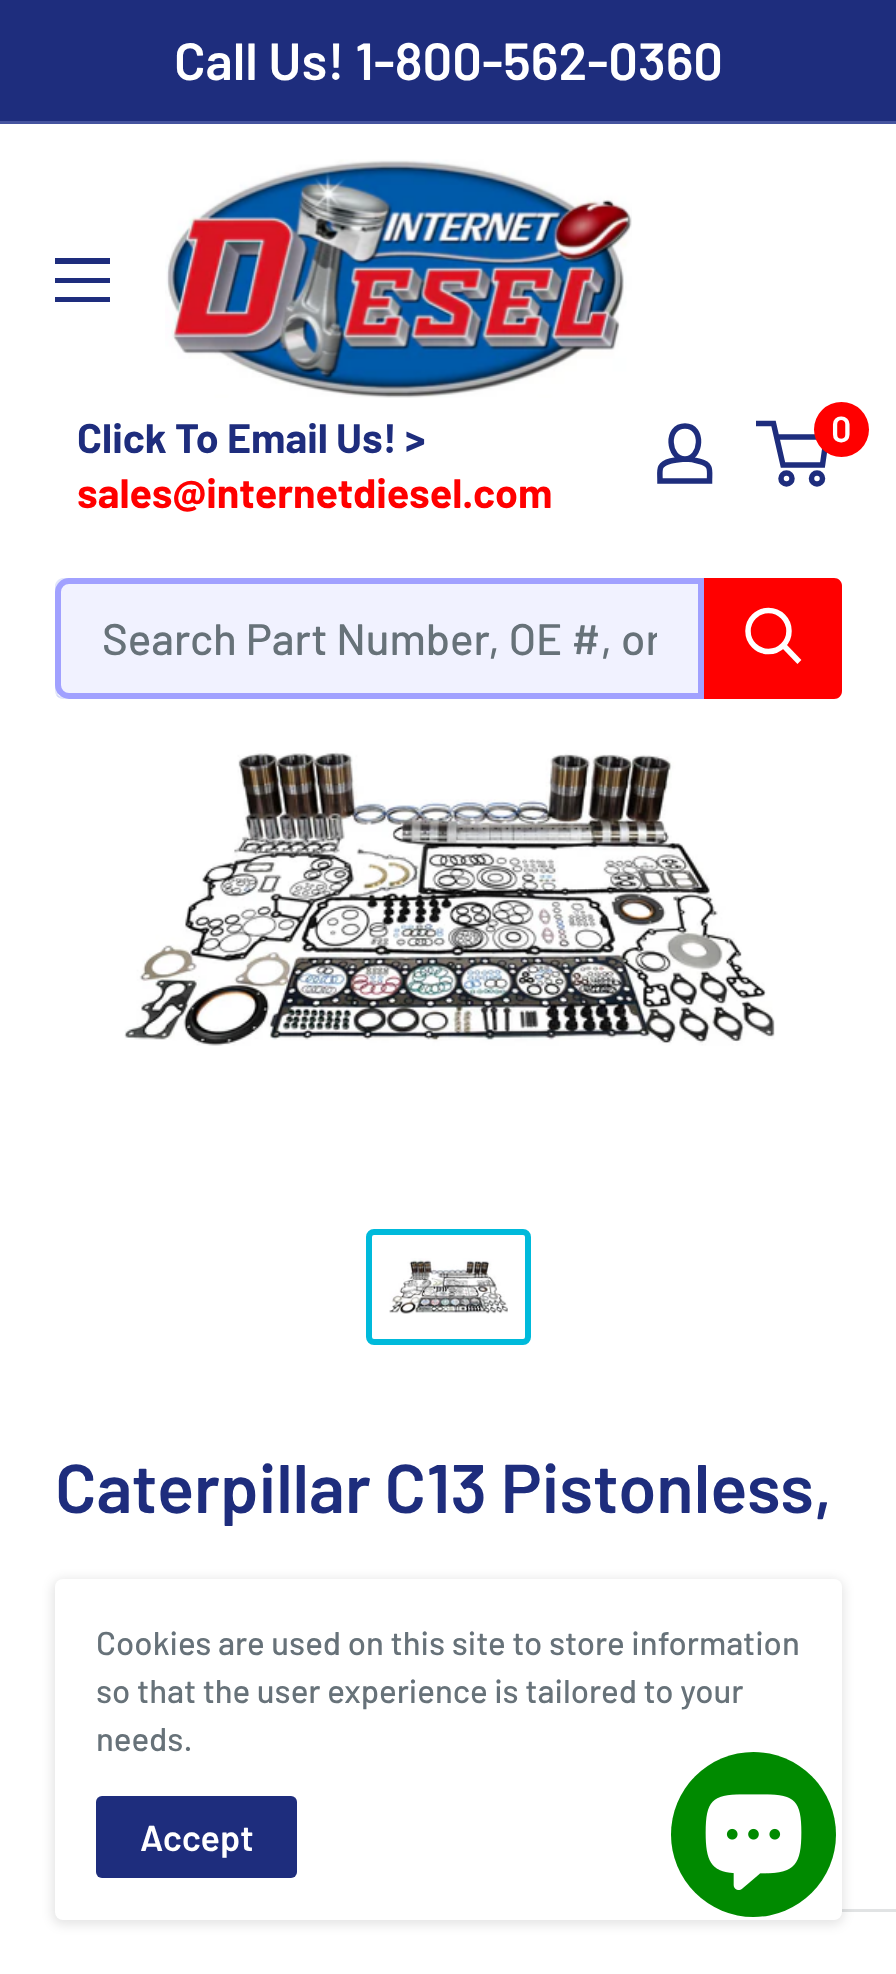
<svg xmlns="http://www.w3.org/2000/svg" width="896" height="1974">
<style>
.a{font:600 52.25px Barlow;fill:#fff}
.b{font:bold 41.25px Barlow;fill:#1e2d7d}
.c{font:bold 41.25px Barlow;fill:#f00}
.d{font:600 36px Barlow;fill:#fff}
.e{font:500 44px Barlow;fill:#677279}
.f{font:600 68.75px Barlow;fill:#1e2d7d}
.g{font:500 33px Barlow;fill:#677279}
</style>
<defs>
<clipPath id="clip1"><path d="M102 611h555v52H102z"/></clipPath>
</defs>
<rect width="100%" height="100%" fill="#fff"/>
<path fill="#1e2d7d" d="M0 0h896v121H0z"/>
<path fill="#46549f" d="M0 121h896v3H0z"/>
<path fill="#1e2d7d" fill-rule="evenodd" d="M55 297h55v5h-55zm0-39h55v6h-55zm0 20h55v5h-55z"/>
<image href="1.png" x="165" y="159" width="467" height="239"/>
<path fill="none" stroke="#1e2d7d" stroke-width="5.5" d="M685 459c5 0 10 1 15 2.5c12 3 9.5 9.5 9.5 19.5h-49.5c0-11-2.5-16.5 10.5-20c4.5-1 9.5-1.5 14.5-2zm0 0c-17 0-20-33 0-33c19.5 0 16.5 33 0 33z"/>
<circle fill="none" stroke="#1e2d7d" stroke-width="5.5" cx="786.5" cy="478.5" r="5.5"/>
<circle fill="none" stroke="#1e2d7d" stroke-width="5.5" cx="817" cy="478.5" r="5.5"/>
<path fill="none" stroke="#1e2d7d" stroke-width="5.5" d="M776.5 437h50l-4 28h-39.5l-9.5-41.5h-17.5"/>
<circle fill="#f00" cx="841.5" cy="429.5" r="27.5"/>
<path fill="#e3e7fa" d="M56 695c1 2 4 4 7 4h771c4 0 8-4 8-8v-105c0-3-2-6-4-7c1 1 1 3 1 4v105c0 4-4 8-9 8h-770c-1 0-3-1-4-1z"/>
<path fill="#a3afef4d" d="M66 580h770l4 1c-1-2-3-3-6-3h-771c-4 0-8 4-8 8v105c0 3 2 6 5 7c-1-1-2-3-2-5v-105c0-4 3-8 8-8z"/>
<path fill="#d7daff59" stroke="#a1a1ff" stroke-width="6" d="M69 581h632v115h-632c-6 0-11-5-11-11v-93c0-6 5-11 11-11z"/>
<path fill="#f00" d="M704 578h130c4.5 0 8 3.5 8 8v105c0 4.5-3.5 8-8 8h-130z"/>
<path fill="none" stroke="#fff" stroke-width="5.5" stroke-linecap="square" d="M797.5 660l-13.5-14"/>
<circle fill="none" stroke="#fff" stroke-width="5.5" cx="768.5" cy="631" r="20.5"/>
<image href="2.png" x="124" y="750" width="651" height="296"/>
<rect fill="none" stroke="#00badb" stroke-width="6" x="369" y="1232" width="159" height="110" rx="5"/>
<image href="3.png" x="389" y="1258" width="119" height="56"/>
<path fill="#e1e3e4" d="M842 1909h54v3H842z"/>
<rect fill="#0000001a" filter="blur(5.5px)" x="52" y="1579" width="792" height="346" rx="11"/>
<rect fill="#fff" x="55" y="1579" width="787" height="341" rx="8"/>
<rect fill="#1e2d7d" x="96" y="1796" width="201" height="82" rx="6"/>
<circle fill="#008a00" cx="753.5" cy="1834.5" r="82.5"/>
<image href="4.png" x="705" y="1794" width="97" height="96"/>
<text class="a" x="174" y="80">Call Us! 1-800-562-0360</text>
<text class="b" x="77" y="453">Click To Email Us! &gt;</text>
<text class="c" x="77" y="508">sales@internetdiesel.com</text>
<text class="d" x="831" y="442">0</text>
<g clip-path="url(#clip1)">
<text class="e" x="102" y="655">Search Part Number, OE #, or</text>
</g>
<text class="f" x="55" y="1513">Caterpillar C13 Pistonless,</text>
<text class="g" x="96" y="1655">Cookies are used on this site to store information</text>
<text class="g" x="96" y="1703">so that the user experience is tailored to your</text>
<text class="g" x="96" y="1751">needs.</text>
<text class="d" x="140" y="1851">Accept</text>
</svg>
